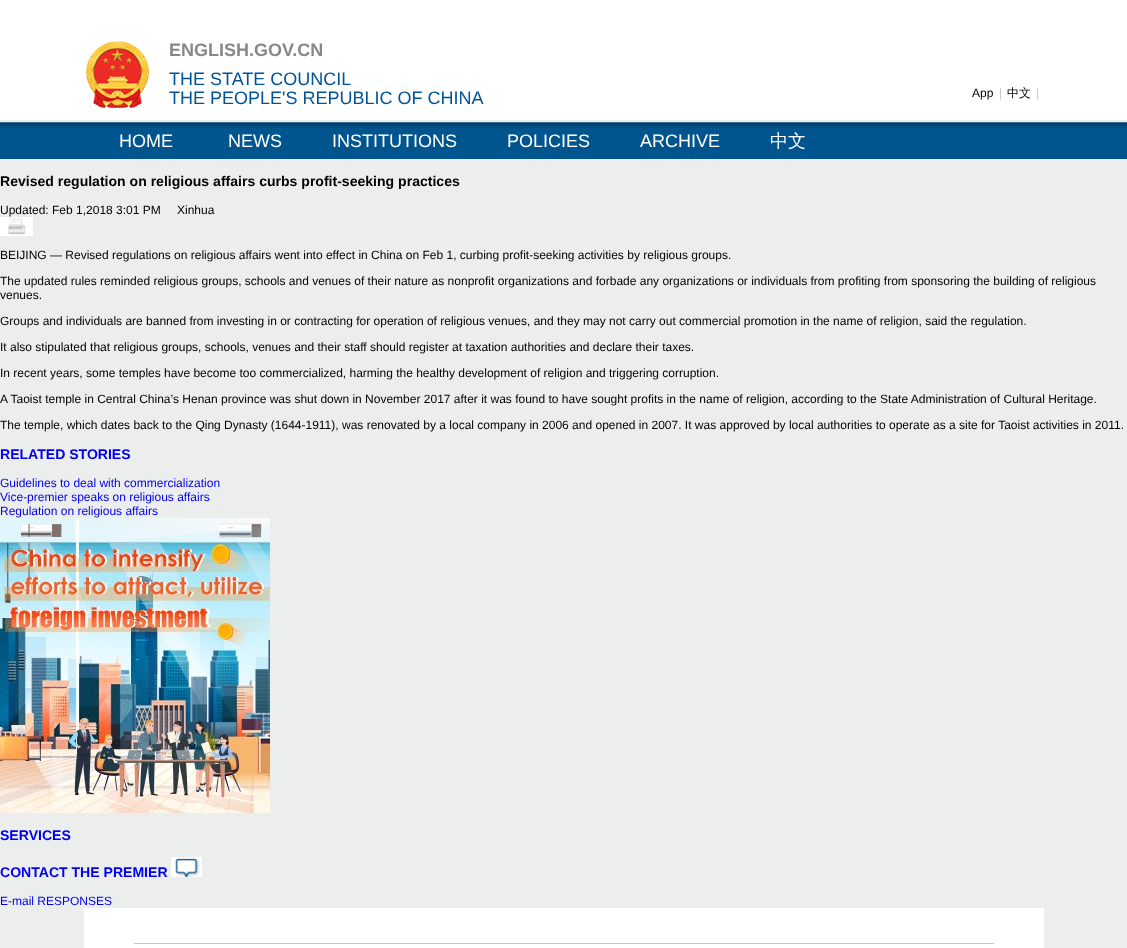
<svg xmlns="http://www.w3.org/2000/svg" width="1127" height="948">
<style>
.a{font:bold 18px Liberation Sans;fill:#888}
.b{font:18px Liberation Sans;fill:#005399}
.c{font:12px Liberation Sans;fill:#000}
.d{font:12px Liberation Sans;fill:#c8c7c7}
.e{font:500 12px WenQuanYi Zen Hei;fill:#000}
.f{font:18px Liberation Sans;fill:#fff}
.g{font:500 18px WenQuanYi Zen Hei;fill:#fff}
.h{font:bold 14.05px Liberation Sans;fill:#000}
.i{font:bold 14.05px Liberation Sans;fill:#00e}
.j{font:12px Liberation Sans;fill:#00e}
</style>
<rect width="100%" height="100%" fill="#eceded"/>
<path fill="#fff" d="M0 0h1127v120H0z"/>
<image href="1.png" x="86" y="41" width="63" height="69"/>
<path fill="#00558e" d="M0 128h1127v31H0z"/>
<image href="2.png" x="0" y="122" width="1127" height="6"/>
<image href="3.png" x="84" y="122" width="960" height="6"/>
<image href="4.png" x="0" y="217" width="33" height="19"/>
<image href="5.png" x="0" y="518" width="270" height="295"/>
<image href="6.png" x="171" y="857" width="31" height="20"/>
<path fill="#fff" d="M84 908h960v40H84z"/>
<path fill="#c8c7c7" d="M134 943h860v1H134z"/>
<text class="a" x="169" y="56">ENGLISH.GOV.CN</text>
<text class="b" x="169" y="85">THE STATE COUNCIL</text>
<text class="b" x="169" y="104">THE PEOPLE'S REPUBLIC OF CHINA</text>
<text class="c" x="972" y="97">App</text>
<text class="d" x="999" y="97">|</text>
<text class="e" x="1007" y="97">中文</text>
<text class="d" x="1036" y="97">|</text>
<text class="f" x="119" y="147">HOME</text>
<text class="f" x="228" y="147">NEWS</text>
<text class="f" x="332" y="147">INSTITUTIONS</text>
<text class="f" x="507" y="147">POLICIES</text>
<text class="f" x="640" y="147">ARCHIVE</text>
<text class="g" x="770" y="147">中文</text>
<text class="h" x="0" y="186">Revised regulation on religious affairs curbs profit-seeking practices</text>
<text class="c" x="0" y="214">Updated: Feb 1,2018 3:01 PM</text>
<text class="c" x="177" y="214">Xinhua</text>
<text class="c" x="0" y="259">BEIJING — Revised regulations on religious affairs went into effect in China on Feb 1, curbing profit-seeking activities by religious groups.</text>
<text class="c" x="0" y="285">The updated rules reminded religious groups, schools and venues of their nature as nonprofit organizations and forbade any organizations or individuals from profiting from sponsoring the building of religious</text>
<text class="c" x="0" y="299">venues.</text>
<text class="c" x="0" y="325">Groups and individuals are banned from investing in or contracting for operation of religious venues, and they may not carry out commercial promotion in the name of religion, said the regulation.</text>
<text class="c" x="0" y="351">It also stipulated that religious groups, schools, venues and their staff should register at taxation authorities and declare their taxes.</text>
<text class="c" x="0" y="377">In recent years, some temples have become too commercialized, harming the healthy development of religion and triggering corruption.</text>
<text class="c" x="0" y="403">A Taoist temple in Central China’s Henan province was shut down in November 2017 after it was found to have sought profits in the name of religion, according to the State Administration of Cultural Heritage.</text>
<text class="c" x="0" y="429">The temple, which dates back to the Qing Dynasty (1644-1911), was renovated by a local company in 2006 and opened in 2007. It was approved by local authorities to operate as a site for Taoist activities in 2011.</text>
<text class="i" x="0" y="459">RELATED STORIES</text>
<text class="j" x="0" y="487">Guidelines to deal with commercialization</text>
<text class="j" x="0" y="501">Vice-premier speaks on religious affairs</text>
<text class="j" x="0" y="515">Regulation on religious affairs</text>
<text class="i" x="0" y="840">SERVICES</text>
<text class="i" x="0" y="877">CONTACT THE PREMIER</text>
<text class="j" x="0" y="905">E-mail RESPONSES</text>
</svg>
